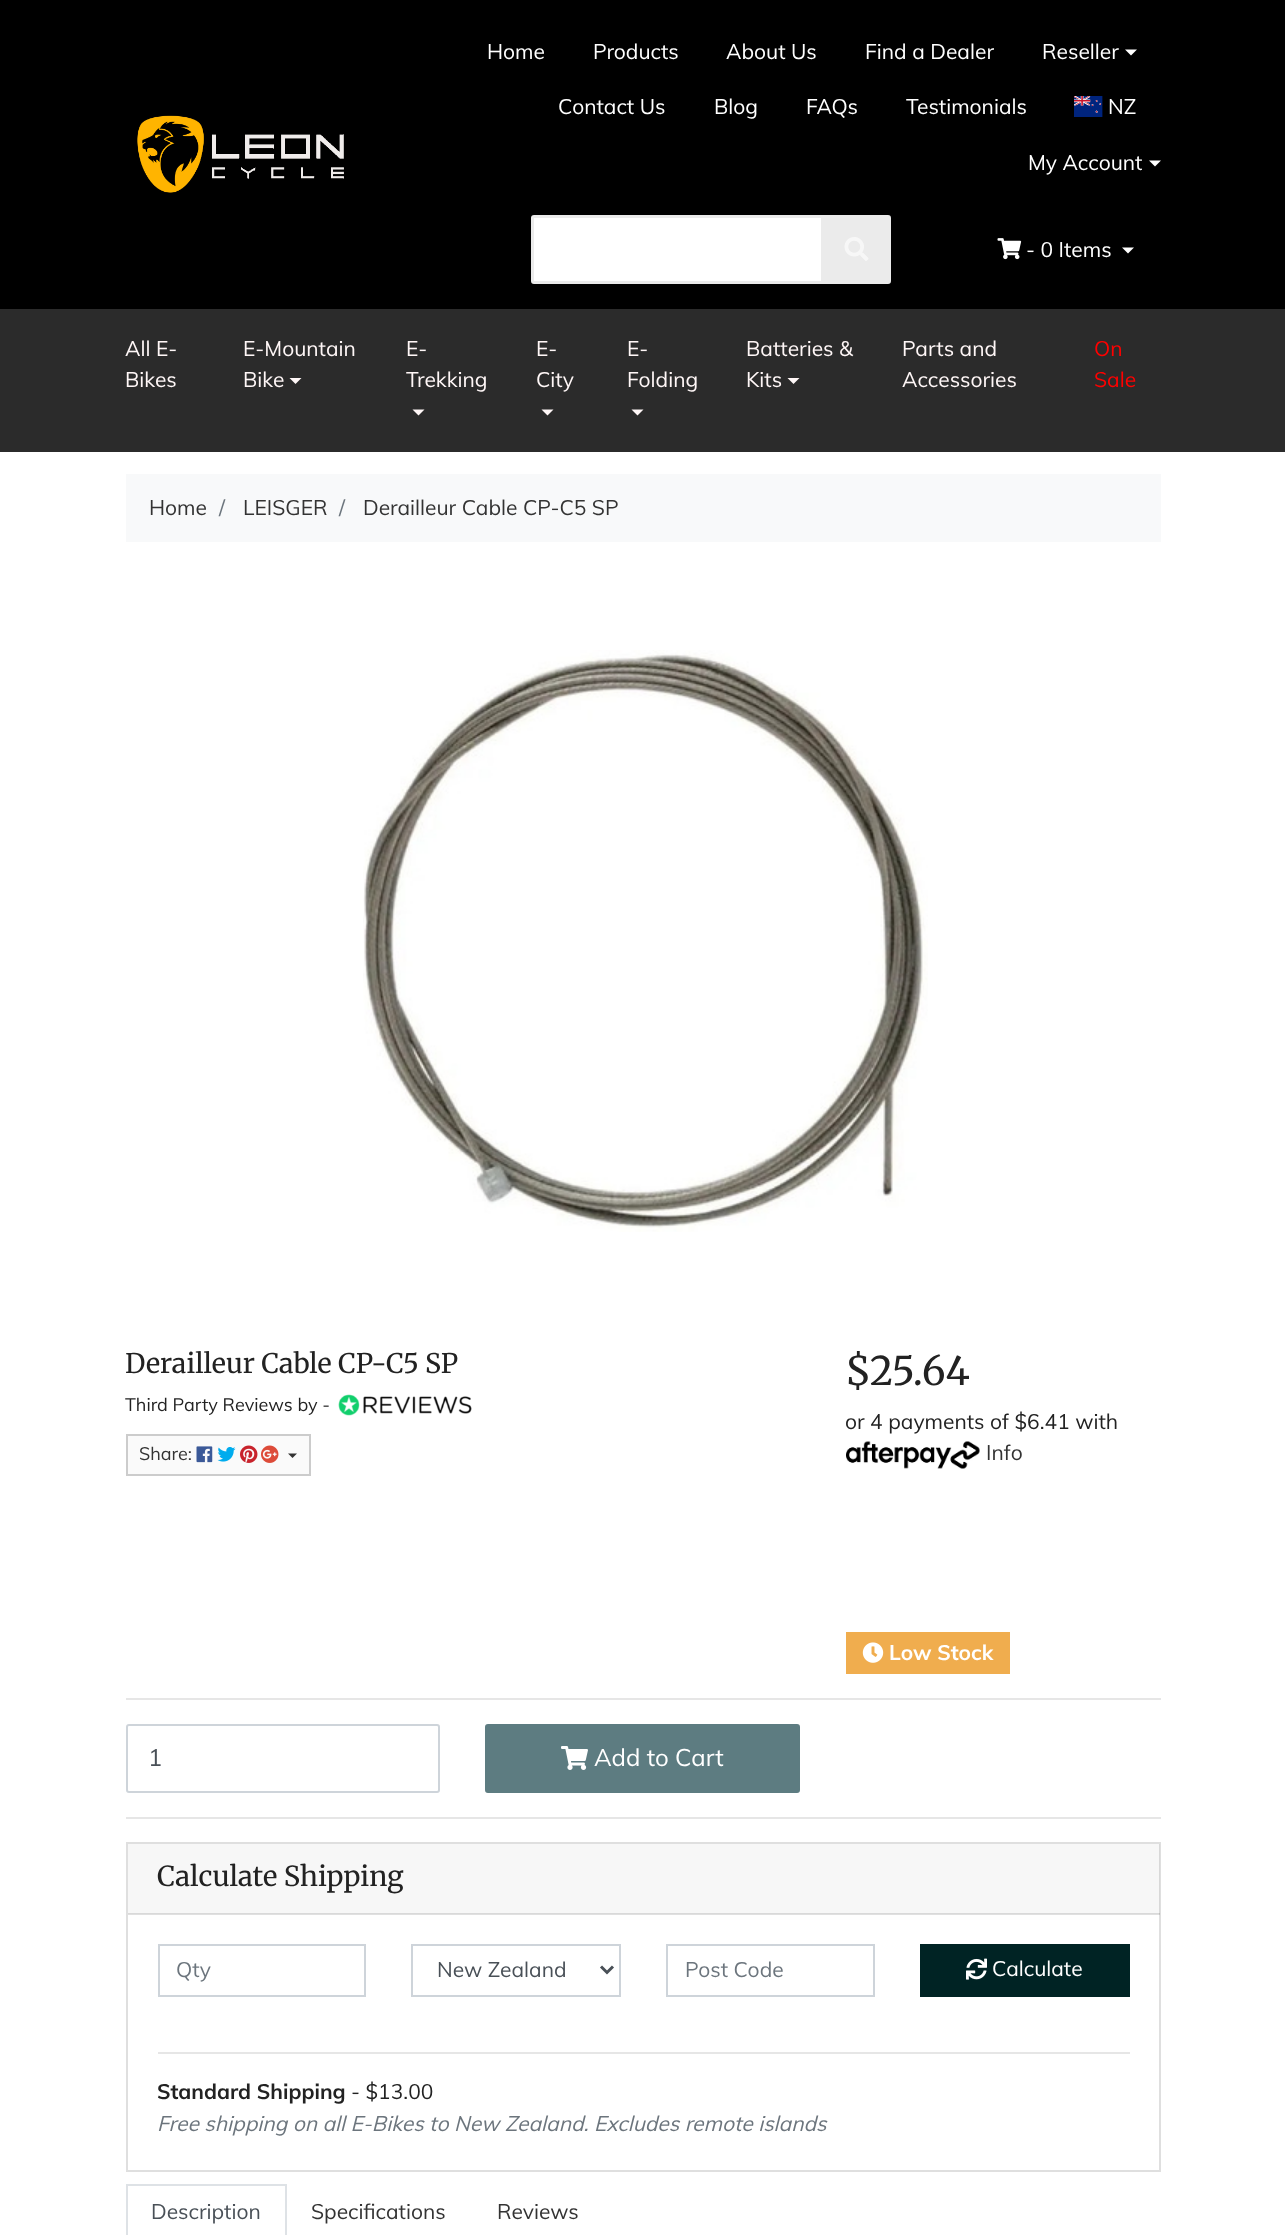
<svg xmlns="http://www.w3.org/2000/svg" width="1285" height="2235">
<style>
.a{font:21px Muli;fill:#fff}
.b{font:21px Muli;fill:#fff7f7}
.c{font:21px Muli;fill:#f00}
.d{font:21px Muli;fill:#333}
.e{font:21px Muli;fill:#6c757d}
.f{font:27px Merriweather;fill:#222}
.g{font:18px Muli;fill:#222}
.h{font:18px Muli;fill:#333}
.i{font:39.5px Merriweather;fill:#222}
.j{font:21px Muli;fill:#222}
.k{font:bold 21px Muli;fill:#fff}
.l{font:24px Muli;fill:#495057}
.m{font:24px Muli;fill:#fff}
.n{font:27.5px Merriweather;fill:#222}
.o{font:21px Muli;fill:#495057}
.p{font:bold 21px Muli;fill:#222}
.q{font:italic 21px Muli;fill:#6c757d}
</style>
<rect width="100%" height="100%" fill="#fff"/>
<path fill="#000" d="M0 0h1285v309H0z"/>
<image href="1.png" x="137" y="115" width="207" height="78"/>
<path fill="#fff" d="M1125 49.5h12l-6 6z"/>
<image href="2.png" x="1074" y="96" width="29" height="21"/>
<path fill="#fff" d="M1149 160.5h12l-6 6z"/>
<path fill="#fff" stroke="#ebebeb" stroke-width="3" d="M534 216.5h288.5v66h-288.5c-1 0-1.5-.5-1.5-1.5v-63c0-1 .5-1.5 1.5-1.5z"/>
<path fill="#ebebeb" stroke="#ebebeb" stroke-width="2" d="M823 216h65c1 0 2 1 2 2v63c0 1-1 2-2 2h-65z"/>
<image href="3.png" x="844" y="237" width="25" height="24"/>
<image href="4.png" x="997" y="238" width="25" height="22"/>
<path fill="#fff" d="M1122 247.5h12l-6 6z"/>
<path fill="#2b2b2b" d="M0 309h1285v143H0z"/>
<path fill="#fff7f7" d="M289.5 378h12l-6 6z"/>
<path fill="#fff7f7" d="M412.5 409.5h12l-6 6z"/>
<path fill="#fff7f7" d="M541.5 409.5h12l-6 6z"/>
<path fill="#fff7f7" d="M631.5 409.5h12l-6 6z"/>
<path fill="#fff7f7" d="M787.5 378h12l-6 6z"/>
<path fill="#f8f9fa" d="M126 474h1035v68H126z"/>
<image href="5.png" x="363" y="650" width="565" height="582"/>
<image href="6.png" x="338" y="1394" width="134" height="22"/>
<path fill="#fafafa" stroke="#ccc" stroke-width="2" d="M127 1435h183v40H127z"/>
<image href="7.png" x="196" y="1446" width="17" height="17"/>
<image href="8.png" x="217" y="1447" width="19" height="15"/>
<image href="9.png" x="240" y="1445" width="18" height="18"/>
<image href="10.png" x="261" y="1445" width="18" height="18"/>
<path fill="#333" d="M288 1453.5h9l-4.5 4.5z"/>
<image href="11.png" x="846" y="1441" width="134" height="28"/>
<path fill="#f0ad4e" d="M846 1632h164v42H846z"/>
<image href="12.png" x="862" y="1642" width="22" height="21"/>
<path fill="#e6e6e6" d="M126 1698h1035v2H126z"/>
<rect fill="none" stroke="#ced4da" stroke-width="2" x="127" y="1725" width="312" height="67" rx="2"/>
<rect fill="#5d7c81" stroke="#5d7c81" stroke-width="2" x="486" y="1725" width="313" height="67" rx="2"/>
<image href="13.png" x="561" y="1746" width="27" height="24"/>
<path fill="#e6e6e6" d="M126 1817h1035v2H126z"/>
<path fill="none" stroke="#dfdfdf" stroke-width="2" d="M127 1843h1033v328H127z"/>
<path fill="#00000008" d="M128 1844h1032v70H128z"/>
<path fill="#0000001f" d="M128 1913h1032v2H128z"/>
<path fill="none" stroke="#ced4da" stroke-width="2" d="M159 1945h206v51H159z"/>
<path fill="none" stroke="#ced4da" stroke-width="2" d="M412 1945h208v51H412z"/>
<path fill="none" stroke="#495057" stroke-width="3" d="M601 1966.5l6 6l6-6"/>
<path fill="none" stroke="#ced4da" stroke-width="2" d="M667 1945h207v51H667z"/>
<path fill="#002324" d="M920 1944h210v53H920z"/>
<image href="14.png" x="966" y="1958" width="21" height="22"/>
<path fill="#e6e6e6" d="M158 2052h972v2H158z"/>
<path fill="#dee2e6" d="M126 2184h161v2H126z"/>
<path fill="#dee2e6" d="M285 2184h2v51H285z"/>
<path fill="#dee2e6" d="M126 2184h2v51H126z"/>
<text class="a" x="487" y="59">Home</text>
<text class="a" x="593" y="59">Products</text>
<text class="a" x="726" y="59">About Us</text>
<text class="a" x="865" y="59">Find a Dealer</text>
<text class="a" x="1042" y="59">Reseller</text>
<text class="a" x="558" y="114">Contact Us</text>
<text class="a" x="714" y="114">Blog</text>
<text class="a" x="806" y="114">FAQs</text>
<text class="a" x="906" y="114">Testimonials</text>
<text class="a" x="1108" y="114">NZ</text>
<text class="a" x="1028" y="170">My Account</text>
<text class="a" x="1026" y="257">- 0 Items</text>
<text class="b" x="125" y="356">All E-</text>
<text class="b" x="125" y="387">Bikes</text>
<text class="b" x="243" y="356">E-Mountain</text>
<text class="b" x="243" y="387">Bike</text>
<text class="b" x="406" y="356">E-</text>
<text class="b" x="406" y="387">Trekking</text>
<text class="b" x="536" y="356">E-</text>
<text class="b" x="536" y="387">City</text>
<text class="b" x="627" y="356">E-</text>
<text class="b" x="627" y="387">Folding</text>
<text class="b" x="746" y="356">Batteries &amp;</text>
<text class="b" x="746" y="387">Kits</text>
<text class="b" x="902" y="356">Parts and</text>
<text class="b" x="902" y="387">Accessories</text>
<text class="c" x="1094" y="356">On</text>
<text class="c" x="1094" y="387">Sale</text>
<text class="d" x="149" y="515">Home</text>
<text class="e" x="219" y="515">/</text>
<text class="d" x="243" y="515">LEISGER</text>
<text class="e" x="339" y="515">/</text>
<text class="d" x="363" y="515">Derailleur Cable CP-C5 SP</text>
<text class="f" x="125" y="1373">Derailleur Cable CP-C5 SP</text>
<text class="g" x="125" y="1411">Third Party Reviews by -</text>
<text class="h" x="139" y="1460">Share:</text>
<text class="i" x="845" y="1385">$25.64</text>
<text class="j" x="845" y="1429">or 4 payments of $6.41 with</text>
<text class="d" x="986" y="1460">Info</text>
<text class="k" x="889" y="1660">Low Stock</text>
<text class="l" x="148" y="1766">1</text>
<text class="m" x="594" y="1766">Add to Cart</text>
<text class="n" x="157" y="1886">Calculate Shipping</text>
<text class="e" x="176" y="1977">Qty</text>
<text class="o" x="437" y="1977">New Zealand</text>
<text class="e" x="685" y="1977">Post Code</text>
<text class="a" x="992" y="1976">Calculate</text>
<text class="p" x="157" y="2099">Standard Shipping</text>
<text class="j" x="351" y="2099">- $13.00</text>
<text class="q" x="157" y="2131">Free shipping on all E-Bikes to New Zealand. Excludes remote islands</text>
<text class="o" x="151" y="2219">Description</text>
<text class="d" x="311" y="2219">Specifications</text>
<text class="d" x="497" y="2219">Reviews</text>
</svg>
